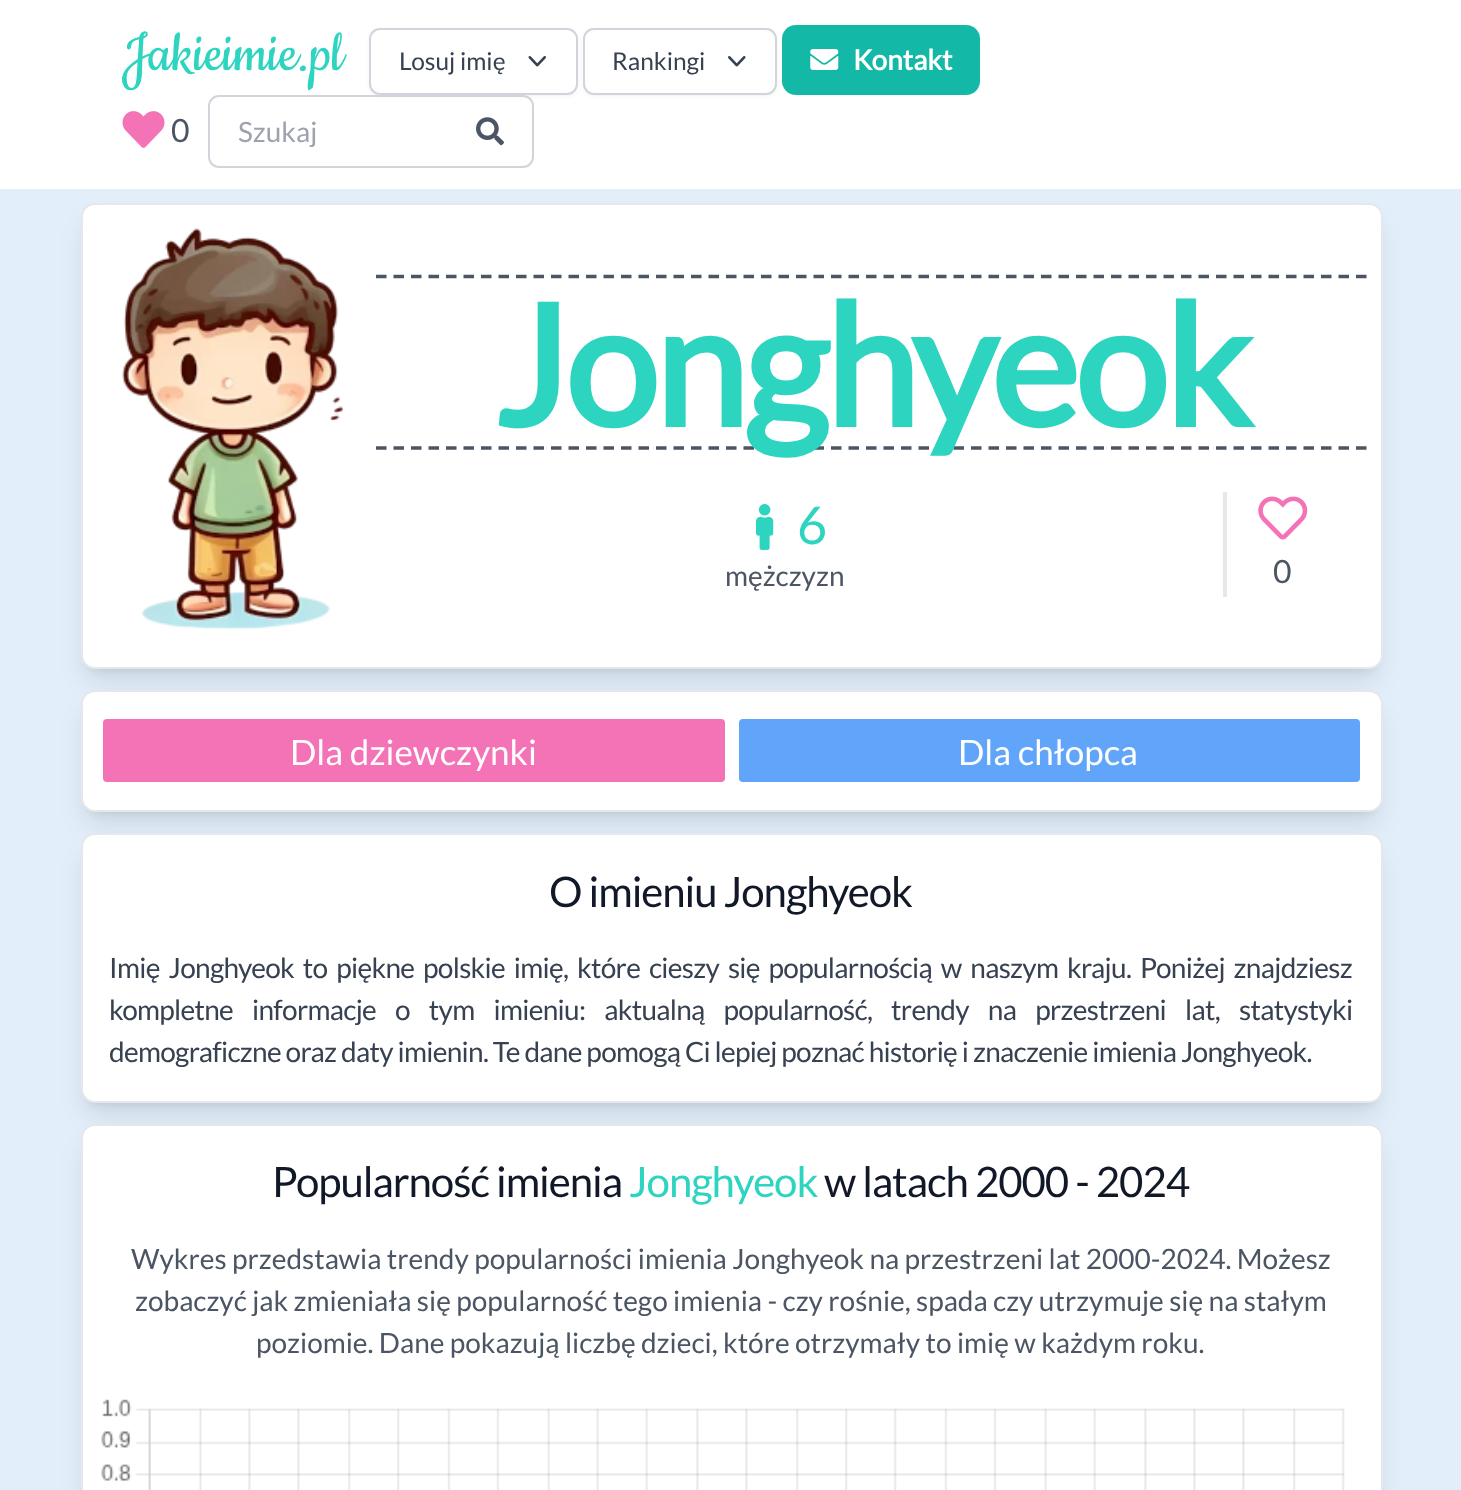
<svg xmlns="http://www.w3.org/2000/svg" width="1461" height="1490">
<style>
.a{font:63px Cookie;fill:#2dd4bf}
.b{font:24.5px Lato;fill:#374151}
.c{font:bold 28px Lato;fill:#fff}
.d{font:32px Lato;fill:#4b5563}
.e{font:28px Lato;fill:#9ca3af}
.f{font:bold 168px Lato;letter-spacing:-4.25px;fill:#2dd4bf}
.g{font:52px Lato;fill:#2dd4bf}
.h{font:28px Lato;fill:#4b5563}
.i{font:35px Lato;fill:#fff}
.j{font:42px Lato;letter-spacing:-1.05px;fill:#111827}
.k{font:28px Lato;letter-spacing:-0.7px;fill:#374151}
.l{font:42px Lato;letter-spacing:-1.05px;fill:#2dd4bf}
</style>
<rect width="100%" height="100%" fill="#e2effa"/>
<path fill="#fff" d="M0 0h1461v189H0z"/>
<rect fill="#0000000d" filter="blur(2px)" x="369" y="30" width="209" height="66" rx="11"/>
<rect fill="#fff" stroke="#d1d5db" stroke-width="2" x="370" y="29" width="207" height="65" rx="10"/>
<image href="1.png" x="528" y="56" width="18" height="11"/>
<rect fill="#14b8a6" x="782" y="25" width="198" height="70" rx="14"/>
<rect fill="#0000000d" filter="blur(2px)" x="583" y="30" width="194" height="66" rx="11"/>
<rect fill="#fff" stroke="#d1d5db" stroke-width="2" x="584" y="29" width="192" height="65" rx="10"/>
<image href="2.png" x="728" y="56" width="18" height="11"/>
<image href="3.png" x="810" y="49" width="29" height="21"/>
<image href="4.png" x="122" y="111" width="43" height="37"/>
<rect fill="none" stroke="#d1d5db" stroke-width="2" x="209" y="96" width="324" height="71" rx="10"/>
<image href="5.png" x="476" y="117" width="28" height="29"/>
<rect fill="#0000001a" filter="blur(5px)" x="88" y="217" width="1288" height="452" rx="7"/>
<rect fill="#0000001a" filter="blur(13px)" x="86" y="226" width="1291" height="455" rx="9"/>
<rect fill="#fff" stroke="#e5e7eb" stroke-width="2" x="82" y="204" width="1300" height="464" rx="13"/>
<image href="6.png" x="122" y="228" width="222" height="402"/>
<path fill="none" stroke="#4b5563" stroke-width="3.5" stroke-dasharray="10.5 7" d="M376 276.5h991"/>
<path fill="none" stroke="#4b5563" stroke-width="3.5" stroke-dasharray="10.5 7" d="M376 448h991"/>
<image href="7.png" x="756" y="504" width="18" height="46"/>
<path fill="#e5e7eb" d="M1223 492h4v105H1223z"/>
<image href="8.png" x="1258" y="496" width="50" height="44"/>
<rect fill="#0000001a" filter="blur(5px)" x="88" y="704" width="1288" height="108" rx="7"/>
<rect fill="#0000001a" filter="blur(13px)" x="86" y="712" width="1291" height="112" rx="9"/>
<rect fill="#fff" stroke="#e5e7eb" stroke-width="2" x="82" y="691" width="1300" height="120" rx="13"/>
<rect fill="#f472b6" x="103" y="719" width="622" height="63" rx="4"/>
<rect fill="#60a5fa" x="739" y="719" width="621" height="63" rx="4"/>
<rect fill="#0000001a" filter="blur(5px)" x="88" y="847" width="1288" height="256" rx="7"/>
<rect fill="#0000001a" filter="blur(13px)" x="86" y="856" width="1291" height="259" rx="9"/>
<rect fill="#fff" stroke="#e5e7eb" stroke-width="2" x="82" y="834" width="1300" height="268" rx="13"/>
<rect fill="#0000001a" filter="blur(13px)" x="86" y="1146" width="1291" height="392" rx="9"/>
<rect fill="#fff" stroke="#e5e7eb" stroke-width="2" x="82" y="1125" width="1300" height="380" rx="13"/>
<image href="9.png" x="101" y="1399" width="1244" height="91"/>
<text class="a" x="122" y="70">Jakieimie.pl</text>
<text class="b" x="399" y="70">Losuj imię</text>
<text class="b" x="612" y="70">Rankingi</text>
<text class="c" x="853" y="70">Kontakt</text>
<text class="d" x="171" y="142">0</text>
<text class="e" x="238" y="142">Szukaj</text>
<text class="f" x="494" y="427">Jonghyeok</text>
<text class="g" x="797" y="544">6</text>
<text class="h" x="725" y="586">mężczyzn</text>
<text class="d" x="1273" y="583">0</text>
<text class="i" x="290" y="765">Dla dziewczynki</text>
<text class="i" x="958" y="765">Dla chłopca</text>
<text class="j" x="549" y="907">O imieniu Jonghyeok</text>
<text class="k" x="109" y="978" word-spacing="4.1">Imię Jonghyeok to piękne polskie imię, które cieszy się popularnością w naszym kraju.</text>
<text class="k" x="1140" y="978" word-spacing="4.1">Poniżej znajdziesz</text>
<text class="k" x="109" y="1020" word-spacing="14.25">kompletne informacje o tym imieniu: aktualną popularność, trendy na przestrzeni lat,</text>
<text class="k" x="1239" y="1020">statystyki</text>
<text class="k" x="109" y="1062">demograficzne oraz daty imienin. Te dane pomogą Ci lepiej poznać historię i znaczenie imienia Jonghyeok.</text>
<text class="j" x="272" y="1197">Popularność imienia</text>
<text class="l" x="629" y="1197">Jonghyeok</text>
<text class="j" x="824" y="1197">w latach 2000 - 2024</text>
<text class="h" x="131" y="1269">Wykres przedstawia trendy popularności imienia Jonghyeok na przestrzeni lat 2000-2024. Możesz</text>
<text class="h" x="135" y="1311">zobaczyć jak zmieniała się popularność tego imienia - czy rośnie, spada czy utrzymuje się na stałym</text>
<text class="h" x="256" y="1353">poziomie. Dane pokazują liczbę dzieci, które otrzymały to imię w każdym roku.</text>
</svg>
